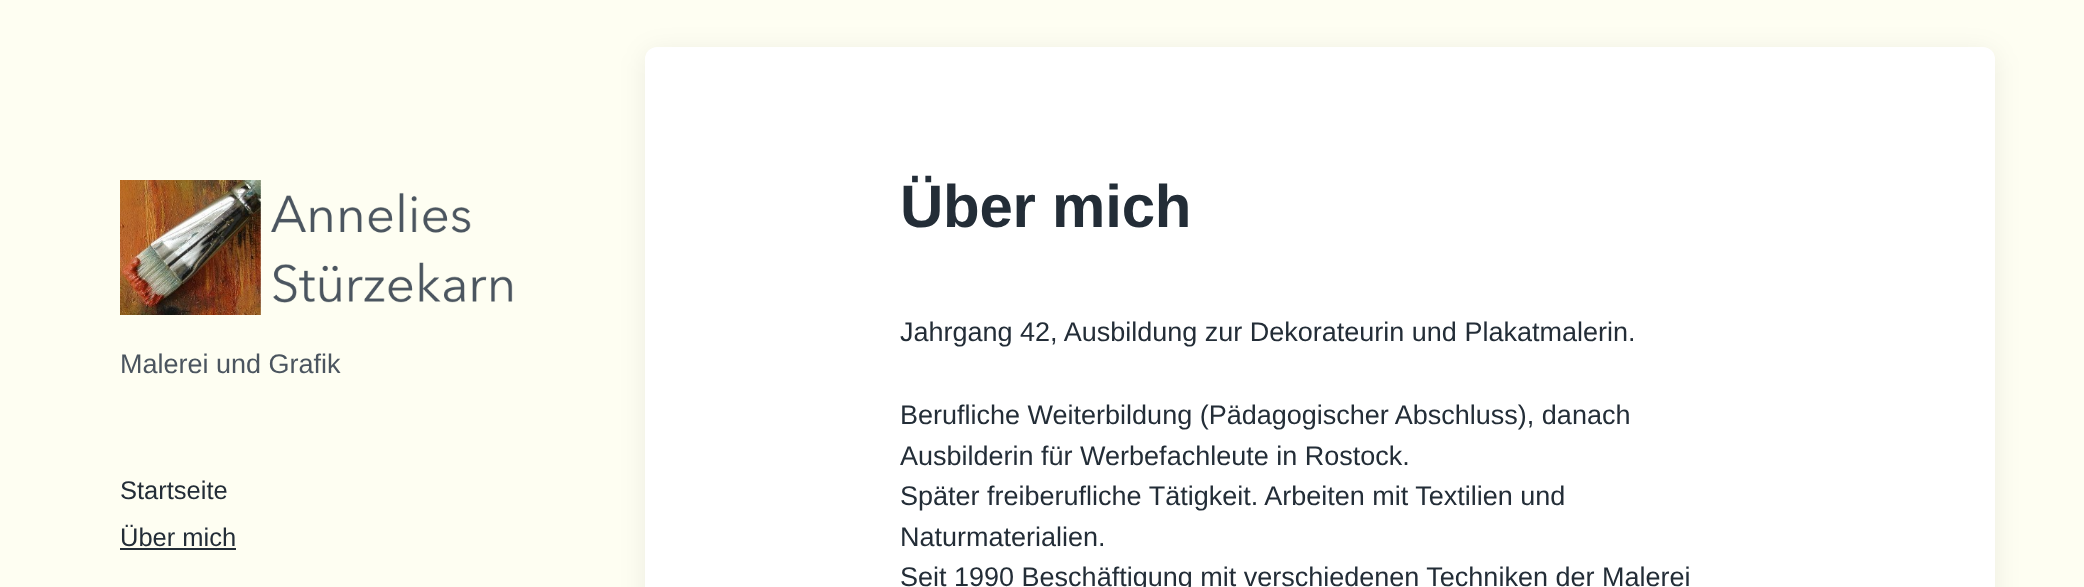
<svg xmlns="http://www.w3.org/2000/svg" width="2084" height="587">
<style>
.a{font:27px Liberation Sans;fill:#4b555f}
.b{font:25.5px Liberation Sans;fill:#232d37}
.c{font:bold 60px Liberation Sans;letter-spacing:-0.25px;fill:#232d37}
.d{font:27px Liberation Sans;fill:#232d37}
</style>
<rect width="100%" height="100%" fill="#fefef2"/>
<image href="1.png" x="120" y="180" width="393" height="135"/>
<path fill="#232d37" d="M120 548h116v2H120z"/>
<rect fill="#050a0f12" filter="blur(13.5px)" x="645" y="51" width="1350" height="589" rx="12"/>
<rect fill="#fff" x="645" y="47" width="1350" height="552" rx="12"/>
<text class="a" x="120" y="373">Malerei und Grafik</text>
<text class="b" x="120" y="499">Startseite</text>
<text class="b" x="120" y="546">Über mich</text>
<text class="c" x="900" y="227">Über mich</text>
<text class="d" x="900" y="341">Jahrgang 42, Ausbildung zur Dekorateurin und Plakatmalerin.</text>
<text class="d" x="900" y="424">Berufliche Weiterbildung (Pädagogischer Abschluss), danach</text>
<text class="d" x="900" y="465">Ausbilderin für Werbefachleute in Rostock.</text>
<text class="d" x="900" y="505">Später freiberufliche Tätigkeit. Arbeiten mit Textilien und</text>
<text class="d" x="900" y="546">Naturmaterialien.</text>
<text class="d" x="900" y="586">Seit 1990 Beschäftigung mit verschiedenen Techniken der Malerei</text>
</svg>
